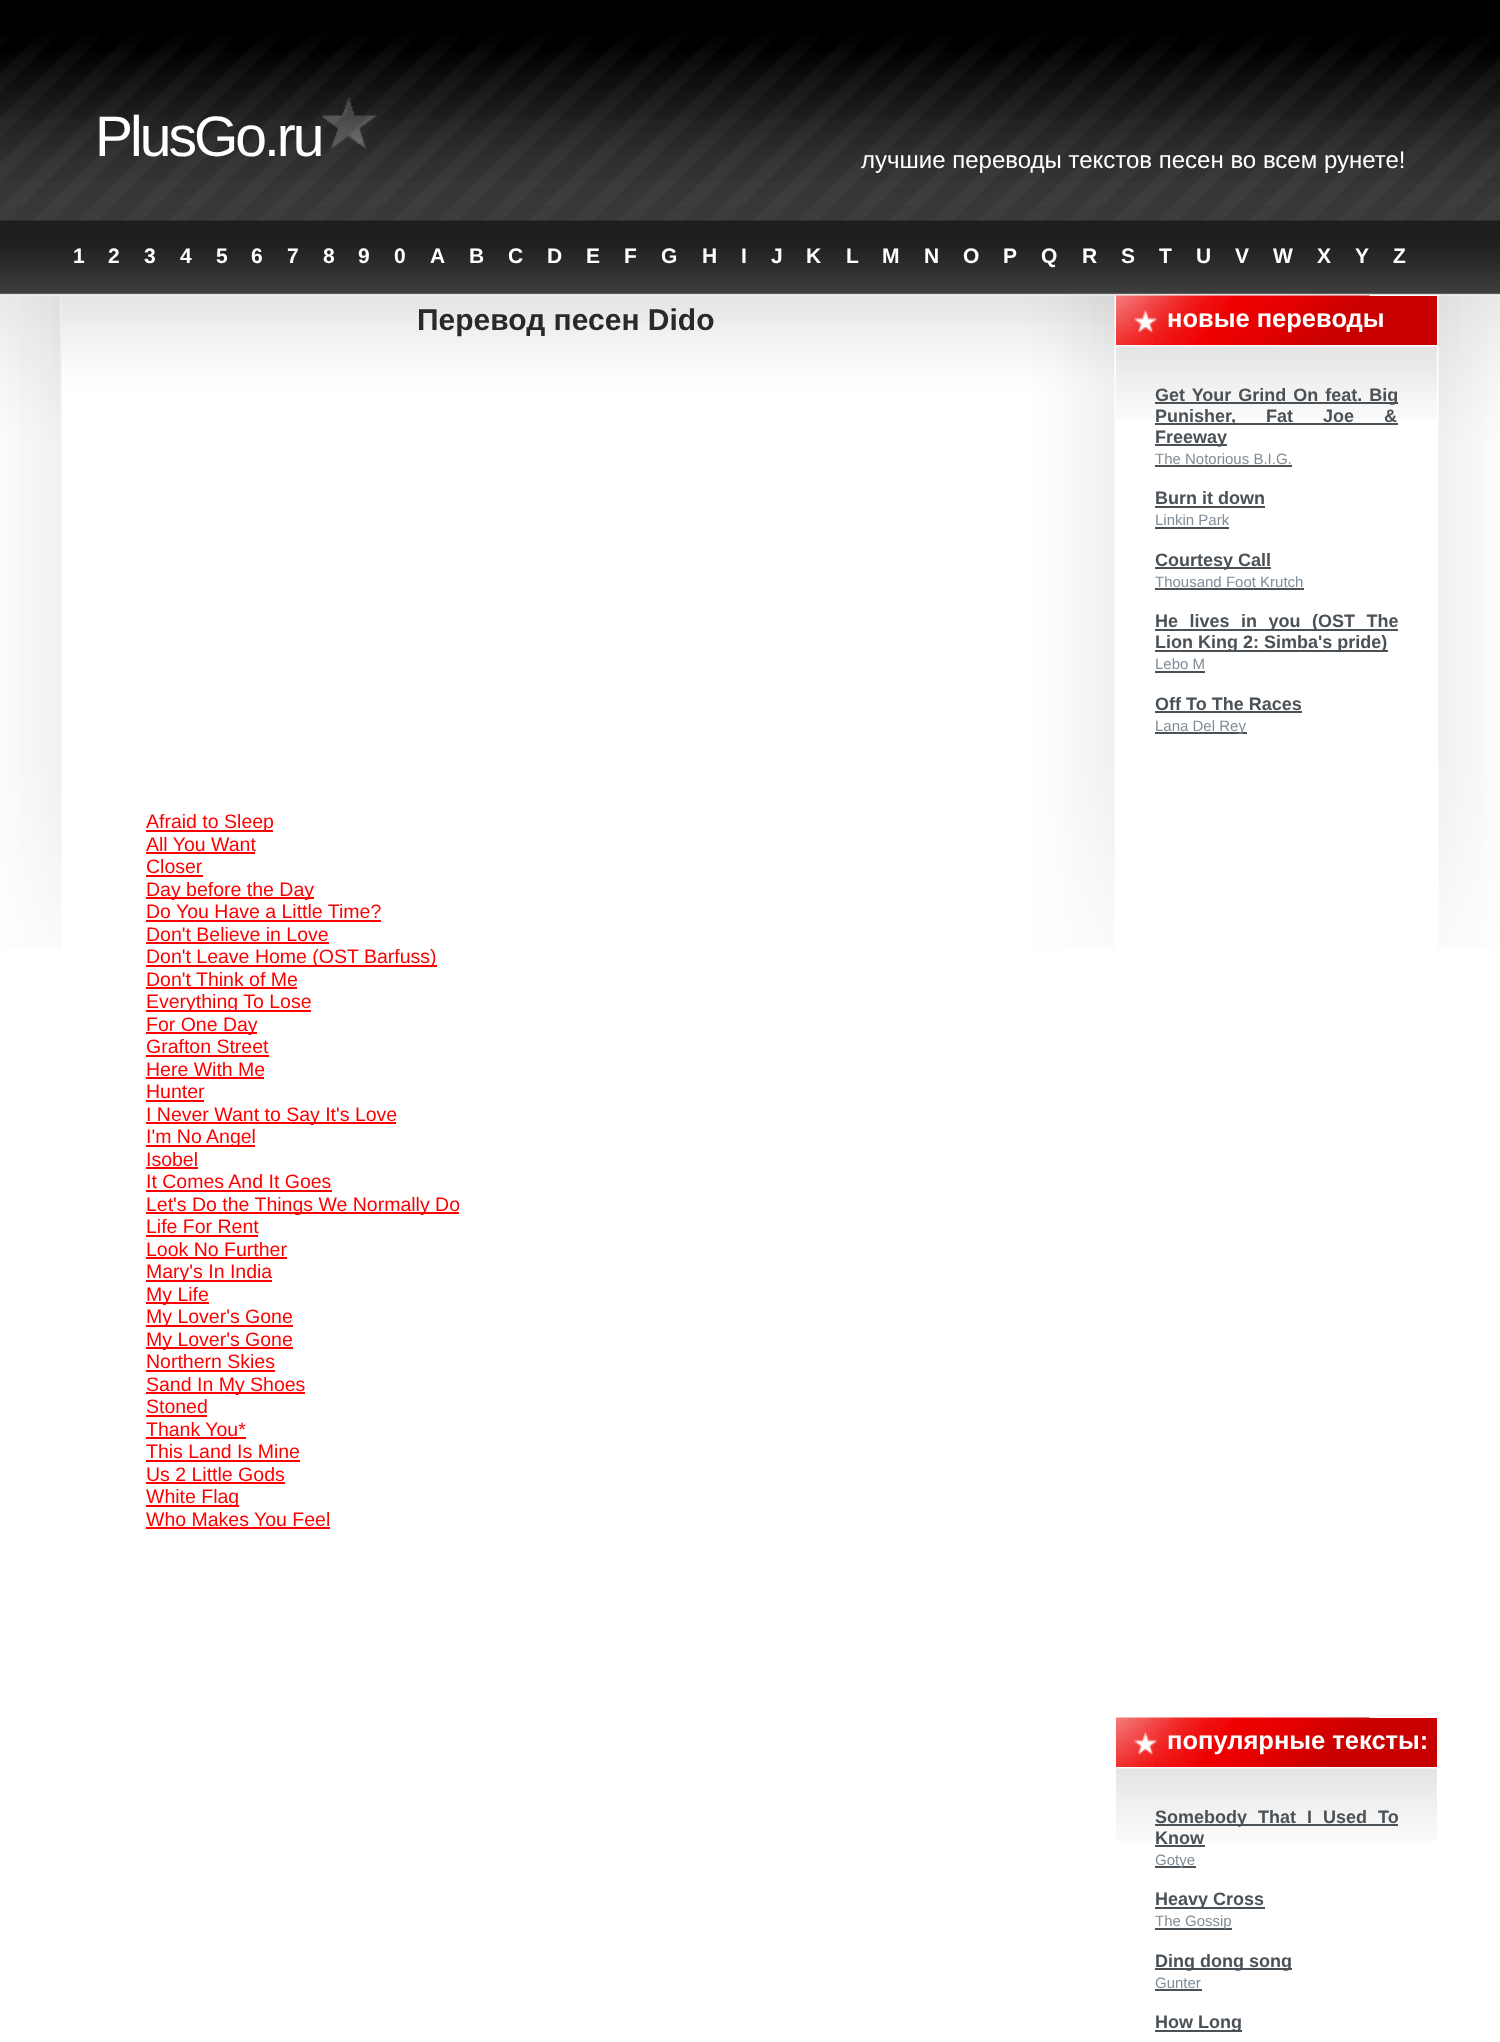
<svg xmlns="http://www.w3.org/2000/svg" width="1500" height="2042">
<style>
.a{font:57px Liberation Sans;letter-spacing:-3px;fill:#fff}
.b{font:24px Liberation Sans;fill:#fff}
.c{font:bold 21px Liberation Sans;fill:#fff}
.d{font:bold 30px Liberation Sans;fill:#292929}
.e{font:19.5px Liberation Sans;fill:#f00}
.f{font:bold 25.5px Liberation Sans;fill:#fff}
.g{font:bold 18px Liberation Sans;fill:#4a5157}
.h{font:15px Liberation Sans;fill:#808c96}
</style>
<rect width="100%" height="100%" fill="#fff"/>
<image href="1.png" x="0" y="0" width="1500" height="296"/>
<image href="2.png" x="322" y="97" width="55" height="52"/>
<image href="3.png" x="0" y="295" width="1500" height="654"/>
<path fill="#f00" d="M146 830h127v2H146z"/>
<path fill="#f00" d="M146 852h109v2H146z"/>
<path fill="#f00" d="M146 875h57v2H146z"/>
<path fill="#f00" d="M146 897h168v2H146z"/>
<path fill="#f00" d="M146 920h235v2H146z"/>
<path fill="#f00" d="M146 942h183v2H146z"/>
<path fill="#f00" d="M146 965h291v2H146z"/>
<path fill="#f00" d="M146 987h151v2H146z"/>
<path fill="#f00" d="M146 1010h165v2H146z"/>
<path fill="#f00" d="M146 1032h111v2H146z"/>
<path fill="#f00" d="M146 1055h123v2H146z"/>
<path fill="#f00" d="M146 1077h118v2H146z"/>
<path fill="#f00" d="M146 1100h58v2H146z"/>
<path fill="#f00" d="M146 1122h250v2H146z"/>
<path fill="#f00" d="M146 1145h109v2H146z"/>
<path fill="#f00" d="M146 1167h52v2H146z"/>
<path fill="#f00" d="M146 1190h186v2H146z"/>
<path fill="#f00" d="M146 1212h313v2H146z"/>
<path fill="#f00" d="M146 1235h112v2H146z"/>
<path fill="#f00" d="M146 1257h141v2H146z"/>
<path fill="#f00" d="M146 1280h126v2H146z"/>
<path fill="#f00" d="M146 1302h63v2H146z"/>
<path fill="#f00" d="M146 1325h147v2H146z"/>
<path fill="#f00" d="M146 1347h147v2H146z"/>
<path fill="#f00" d="M146 1370h129v2H146z"/>
<path fill="#f00" d="M146 1392h159v2H146z"/>
<path fill="#f00" d="M146 1415h61v2H146z"/>
<path fill="#f00" d="M146 1437h100v2H146z"/>
<path fill="#f00" d="M146 1460h154v2H146z"/>
<path fill="#f00" d="M146 1482h139v2H146z"/>
<path fill="#f00" d="M146 1505h93v2H146z"/>
<path fill="#f00" d="M146 1527h184v2H146z"/>
<path fill="#c80000" d="M1369 296h68v49H1369z"/>
<image href="4.png" x="1116" y="295" width="254" height="50"/>
<image href="5.png" x="1116" y="346" width="321" height="73"/>
<path fill="#4a5157" d="M1155 402h243v2H1155z"/>
<path fill="#4a5157" d="M1155 423h243v2H1155z"/>
<path fill="#4a5157" d="M1155 444h72v2H1155z"/>
<path fill="#4a5157" d="M1155 465h137v2H1155z"/>
<path fill="#4a5157" d="M1155 506h110v2H1155z"/>
<path fill="#4a5157" d="M1155 527h74v2H1155z"/>
<path fill="#4a5157" d="M1155 567h116v2H1155z"/>
<path fill="#4a5157" d="M1155 588h149v2H1155z"/>
<path fill="#4a5157" d="M1155 629h243v2H1155z"/>
<path fill="#4a5157" d="M1155 650h233v2H1155z"/>
<path fill="#4a5157" d="M1155 671h50v2H1155z"/>
<path fill="#4a5157" d="M1155 711h147v2H1155z"/>
<path fill="#4a5157" d="M1155 732h92v2H1155z"/>
<path fill="#c80000" d="M1369 1718h68v49H1369z"/>
<image href="6.png" x="1116" y="1717" width="254" height="50"/>
<image href="5.png" x="1116" y="1768" width="321" height="73"/>
<path fill="#4a5157" d="M1155 1824h243v2H1155z"/>
<path fill="#4a5157" d="M1155 1845h50v2H1155z"/>
<path fill="#4a5157" d="M1155 1866h41v2H1155z"/>
<path fill="#4a5157" d="M1155 1907h110v2H1155z"/>
<path fill="#4a5157" d="M1155 1928h77v2H1155z"/>
<path fill="#4a5157" d="M1155 1968h137v2H1155z"/>
<path fill="#4a5157" d="M1155 1989h47v2H1155z"/>
<path fill="#4a5157" d="M1155 2030h87v2H1155z"/>
<text class="a" x="95" y="156">PlusGo.ru</text>
<text class="b" x="861" y="168">лучшие переводы текстов песен во всем рунете!</text>
<text class="c" x="73" y="263">1</text>
<text class="c" x="108" y="263">2</text>
<text class="c" x="144" y="263">3</text>
<text class="c" x="180" y="263">4</text>
<text class="c" x="216" y="263">5</text>
<text class="c" x="251" y="263">6</text>
<text class="c" x="287" y="263">7</text>
<text class="c" x="323" y="263">8</text>
<text class="c" x="358" y="263">9</text>
<text class="c" x="394" y="263">0</text>
<text class="c" x="430" y="263">A</text>
<text class="c" x="469" y="263">B</text>
<text class="c" x="508" y="263">C</text>
<text class="c" x="547" y="263">D</text>
<text class="c" x="586" y="263">E</text>
<text class="c" x="624" y="263">F</text>
<text class="c" x="661" y="263">G</text>
<text class="c" x="702" y="263">H</text>
<text class="c" x="741" y="263">I</text>
<text class="c" x="771" y="263">J</text>
<text class="c" x="806" y="263">K</text>
<text class="c" x="846" y="263">L</text>
<text class="c" x="882" y="263">M</text>
<text class="c" x="924" y="263">N</text>
<text class="c" x="963" y="263">O</text>
<text class="c" x="1003" y="263">P</text>
<text class="c" x="1041" y="263">Q</text>
<text class="c" x="1082" y="263">R</text>
<text class="c" x="1121" y="263">S</text>
<text class="c" x="1159" y="263">T</text>
<text class="c" x="1196" y="263">U</text>
<text class="c" x="1235" y="263">V</text>
<text class="c" x="1273" y="263">W</text>
<text class="c" x="1317" y="263">X</text>
<text class="c" x="1355" y="263">Y</text>
<text class="c" x="1393" y="263">Z</text>
<text class="d" x="417" y="330">Перевод песен Dido</text>
<text class="e" x="146" y="828">Afraid to Sleep</text>
<text class="e" x="146" y="851">All You Want</text>
<text class="e" x="146" y="873">Closer</text>
<text class="e" x="146" y="896">Day before the Day</text>
<text class="e" x="146" y="918">Do You Have a Little Time?</text>
<text class="e" x="146" y="941">Don't Believe in Love</text>
<text class="e" x="146" y="963">Don't Leave Home (OST Barfuss)</text>
<text class="e" x="146" y="986">Don't Think of Me</text>
<text class="e" x="146" y="1008">Everything To Lose</text>
<text class="e" x="146" y="1031">For One Day</text>
<text class="e" x="146" y="1053">Grafton Street</text>
<text class="e" x="146" y="1076">Here With Me</text>
<text class="e" x="146" y="1098">Hunter</text>
<text class="e" x="146" y="1121">I Never Want to Say It's Love</text>
<text class="e" x="146" y="1143">I'm No Angel</text>
<text class="e" x="146" y="1166">Isobel</text>
<text class="e" x="146" y="1188">It Comes And It Goes</text>
<text class="e" x="146" y="1211">Let's Do the Things We Normally Do</text>
<text class="e" x="146" y="1233">Life For Rent</text>
<text class="e" x="146" y="1256">Look No Further</text>
<text class="e" x="146" y="1278">Mary's In India</text>
<text class="e" x="146" y="1301">My Life</text>
<text class="e" x="146" y="1323">My Lover's Gone</text>
<text class="e" x="146" y="1346">My Lover's Gone</text>
<text class="e" x="146" y="1368">Northern Skies</text>
<text class="e" x="146" y="1391">Sand In My Shoes</text>
<text class="e" x="146" y="1413">Stoned</text>
<text class="e" x="146" y="1436">Thank You*</text>
<text class="e" x="146" y="1458">This Land Is Mine</text>
<text class="e" x="146" y="1481">Us 2 Little Gods</text>
<text class="e" x="146" y="1503">White Flag</text>
<text class="e" x="146" y="1526">Who Makes You Feel</text>
<text class="f" x="1167" y="327">новые переводы</text>
<text class="g" x="1155" y="401" word-spacing="2">Get Your Grind On feat. Big</text>
<text class="g" x="1155" y="422" word-spacing="25">Punisher, Fat Joe &amp;</text>
<text class="g" x="1155" y="443">Freeway</text>
<text class="h" x="1155" y="464">The Notorious B.I.G.</text>
<text class="g" x="1155" y="504">Burn it down</text>
<text class="h" x="1155" y="525">Linkin Park</text>
<text class="g" x="1155" y="566">Courtesy Call</text>
<text class="h" x="1155" y="587">Thousand Foot Krutch</text>
<text class="g" x="1155" y="627" word-spacing="6.5">He lives in you (OST The</text>
<text class="g" x="1155" y="648">Lion King 2: Simba's pride)</text>
<text class="h" x="1155" y="669">Lebo M</text>
<text class="g" x="1155" y="710">Off To The Races</text>
<text class="h" x="1155" y="731">Lana Del Rey</text>
<text class="f" x="1167" y="1749">популярные тексты:</text>
<text class="g" x="1155" y="1823" word-spacing="6">Somebody That I Used To</text>
<text class="g" x="1155" y="1844">Know</text>
<text class="h" x="1155" y="1865">Gotye</text>
<text class="g" x="1155" y="1905">Heavy Cross</text>
<text class="h" x="1155" y="1926">The Gossip</text>
<text class="g" x="1155" y="1967">Ding dong song</text>
<text class="h" x="1155" y="1988">Gunter</text>
<text class="g" x="1155" y="2028">How Long</text>
</svg>
